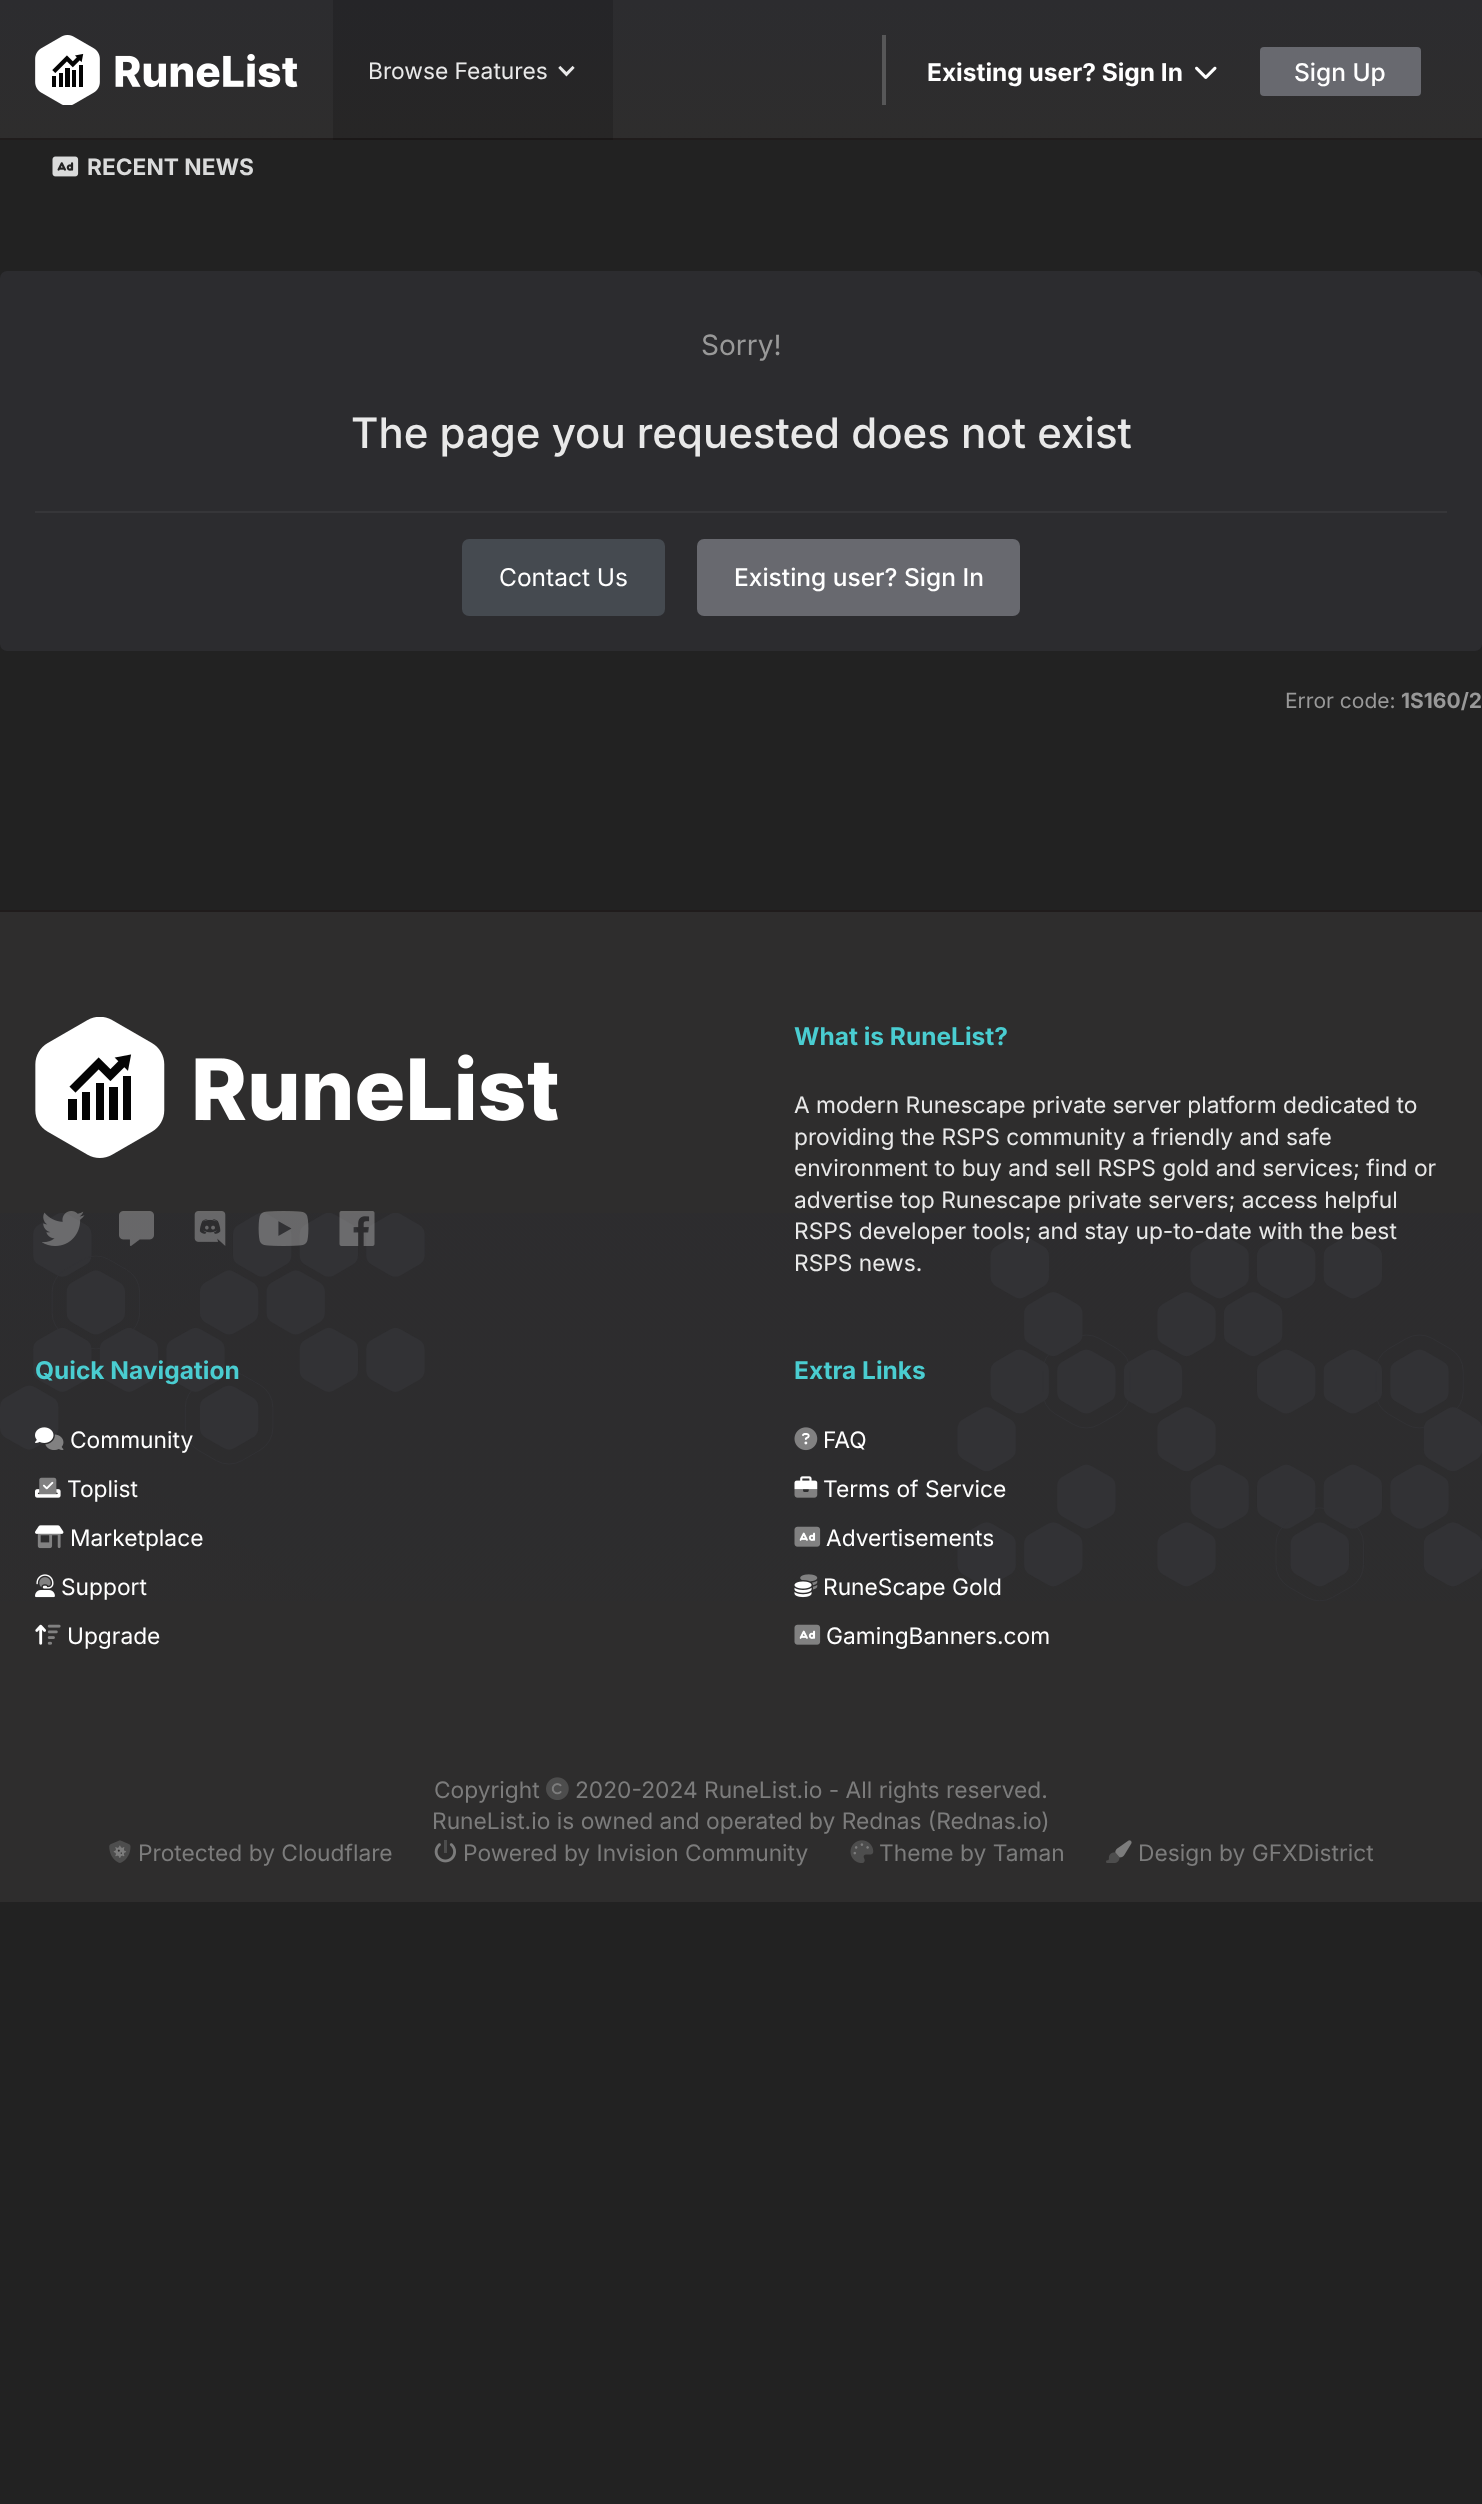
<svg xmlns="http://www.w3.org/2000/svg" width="1482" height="2504">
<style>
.a{font:22.75px Inter;fill:#e9e9e9}
.b{font:bold 24.5px Inter;fill:#fff}
.c{font:500 24.5px Inter;fill:#fff}
.d{font:bold 22.75px Inter;fill:#dadbdb}
.e{font:28px Inter;fill:#999}
.f{font:500 42px Inter;fill:#e9e9e9}
.g{font:24.5px Inter;fill:#fff}
.h{font:21px Inter;fill:#999}
.i{font:bold 21px Inter;fill:#999}
.j{font:bold 24.5px Inter;fill:#4acdd1}
.k{font:22.75px Inter;fill:#fff}
.l{font:22.75px Inter;fill:#7c7c7c}
</style>
<defs>
<linearGradient id="g1" gradientUnits="userSpaceOnUse" x1="741" y1="0" x2="741" y2="138"><stop offset="0" stop-color="#2c2c2f"/><stop offset="1" stop-color="#2e2d2d"/></linearGradient>
<linearGradient id="g2" gradientUnits="userSpaceOnUse" x1="741" y1="0" x2="741" y2="138"><stop offset="0" stop-color="#252528"/><stop offset="1" stop-color="#272626"/></linearGradient>
</defs>
<rect width="100%" height="100%" fill="#222"/>
<path fill="url(#g1)" d="M0 0h1482v138H0z"/>
<path fill="url(#g2)" d="M333 0h280v138H333z"/>
<path fill="#201c1c" d="M0 138h1482v2H0z"/>
<path fill="#1b1818" d="M333 138h280v2H333z"/>
<image href="1.png" x="35" y="35" width="263" height="70"/>
<image href="2.png" x="558" y="65" width="17" height="12"/>
<path fill="#575758" d="M882 35h4v70H882z"/>
<image href="3.png" x="1195" y="66" width="22" height="13"/>
<rect fill="#68696f" x="1260" y="47" width="161" height="49" rx="4"/>
<image href="4.png" x="52" y="156" width="27" height="21"/>
<rect fill="#2c2c2f" y="271" width="1482" height="380" rx="7"/>
<path fill="#363639" d="M35 511h1412v2H35z"/>
<rect fill="#454a50" x="462" y="539" width="203" height="77" rx="7"/>
<rect fill="#68696f" x="697" y="539" width="323" height="77" rx="7"/>
<path fill="#2e2d2d" d="M0 912h1482v990H0z"/>
<image href="5.png" x="0" y="1213" width="1482" height="388"/>
<path fill="#201c1c" d="M0 910h1482v2H0z"/>
<image href="6.png" x="35" y="1017" width="523" height="141"/>
<image href="7.png" x="42" y="1211" width="43" height="35"/>
<image href="8.png" x="119" y="1211" width="35" height="35"/>
<image href="9.png" x="194" y="1211" width="32" height="35"/>
<image href="10.png" x="258" y="1211" width="51" height="35"/>
<image href="11.png" x="339" y="1211" width="36" height="35"/>
<image href="12.png" x="35" y="1427" width="19" height="16"/>
<image href="13.png" x="45" y="1434" width="19" height="16"/>
<image href="15.png" x="35" y="1481" width="26" height="17"/>
<image href="14.png" x="39" y="1477" width="18" height="17"/>
<image href="16.png" x="35" y="1525" width="29" height="9"/>
<image href="17.png" x="37" y="1534" width="24" height="15"/>
<image href="18.png" x="35" y="1574" width="20" height="24"/>
<image href="19.png" x="39" y="1577" width="12" height="11"/>
<image href="20.png" x="35" y="1624" width="11" height="21"/>
<image href="21.png" x="47" y="1624" width="14" height="21"/>
<image href="23.png" x="802" y="1433" width="8" height="12"/>
<image href="22.png" x="794" y="1427" width="24" height="24"/>
<image href="24.png" x="794" y="1476" width="24" height="14"/>
<image href="25.png" x="794" y="1489" width="24" height="9"/>
<image href="27.png" x="799" y="1532" width="17" height="9"/>
<image href="26.png" x="794" y="1526" width="27" height="21"/>
<image href="29.png" x="794" y="1581" width="18" height="17"/>
<image href="28.png" x="800" y="1574" width="18" height="16"/>
<image href="31.png" x="799" y="1630" width="17" height="9"/>
<image href="30.png" x="794" y="1624" width="27" height="21"/>
<image href="33.png" x="551" y="1783" width="11" height="12"/>
<image href="32.png" x="546" y="1777" width="23" height="23"/>
<image href="35.png" x="113" y="1845" width="14" height="13"/>
<image href="34.png" x="109" y="1840" width="22" height="23"/>
<image href="36.png" x="434" y="1843" width="22" height="20"/>
<path fill="#4d4d4d" d="M444 1840h3v13H444z"/>
<image href="38.png" x="853" y="1843" width="16" height="12"/>
<image href="37.png" x="850" y="1840" width="24" height="23"/>
<image href="40.png" x="1115" y="1840" width="17" height="18"/>
<image href="39.png" x="1106" y="1852" width="14" height="11"/>
<text class="a" x="368" y="79">Browse Features</text>
<text class="b" x="927" y="81">Existing user? Sign In</text>
<text class="c" x="1294" y="81">Sign Up</text>
<text class="d" x="87" y="175">RECENT NEWS</text>
<text class="e" x="701" y="355">Sorry!</text>
<text class="f" x="351" y="448">The page you requested does not exist</text>
<text class="g" x="499" y="586">Contact Us</text>
<text class="c" x="734" y="586">Existing user? Sign In</text>
<text class="h" x="1285" y="708">Error code:</text>
<text class="i" x="1401" y="708">1S160/2</text>
<text class="j" x="794" y="1045">What is RuneList?</text>
<text class="a" x="794" y="1113">A modern Runescape private server platform dedicated to</text>
<text class="a" x="794" y="1145">providing the RSPS community a friendly and safe</text>
<text class="a" x="794" y="1176">environment to buy and sell RSPS gold and services; find or</text>
<text class="a" x="794" y="1208">advertise top Runescape private servers; access helpful</text>
<text class="a" x="794" y="1239">RSPS developer tools; and stay up-to-date with the best</text>
<text class="a" x="794" y="1271">RSPS news.</text>
<text class="j" x="35" y="1379">Quick Navigation</text>
<text class="k" x="70" y="1448">Community</text>
<text class="k" x="67" y="1497">Toplist</text>
<text class="k" x="70" y="1546">Marketplace</text>
<text class="k" x="61" y="1595">Support</text>
<text class="k" x="67" y="1644">Upgrade</text>
<text class="j" x="794" y="1379">Extra Links</text>
<text class="k" x="823" y="1448">FAQ</text>
<text class="k" x="823" y="1497">Terms of Service</text>
<text class="k" x="826" y="1546">Advertisements</text>
<text class="k" x="823" y="1595">RuneScape Gold</text>
<text class="k" x="826" y="1644">GamingBanners.com</text>
<text class="l" x="434" y="1798">Copyright</text>
<text class="l" x="575" y="1798">2020-2024 RuneList.io - All rights reserved.</text>
<text class="l" x="432" y="1829">RuneList.io is owned and operated by Rednas (Rednas.io)</text>
<text class="l" x="138" y="1861">Protected by Cloudflare</text>
<text class="l" x="463" y="1861">Powered by Invision Community</text>
<text class="l" x="879" y="1861">Theme by Taman</text>
<text class="l" x="1138" y="1861">Design by GFXDistrict</text>
</svg>
